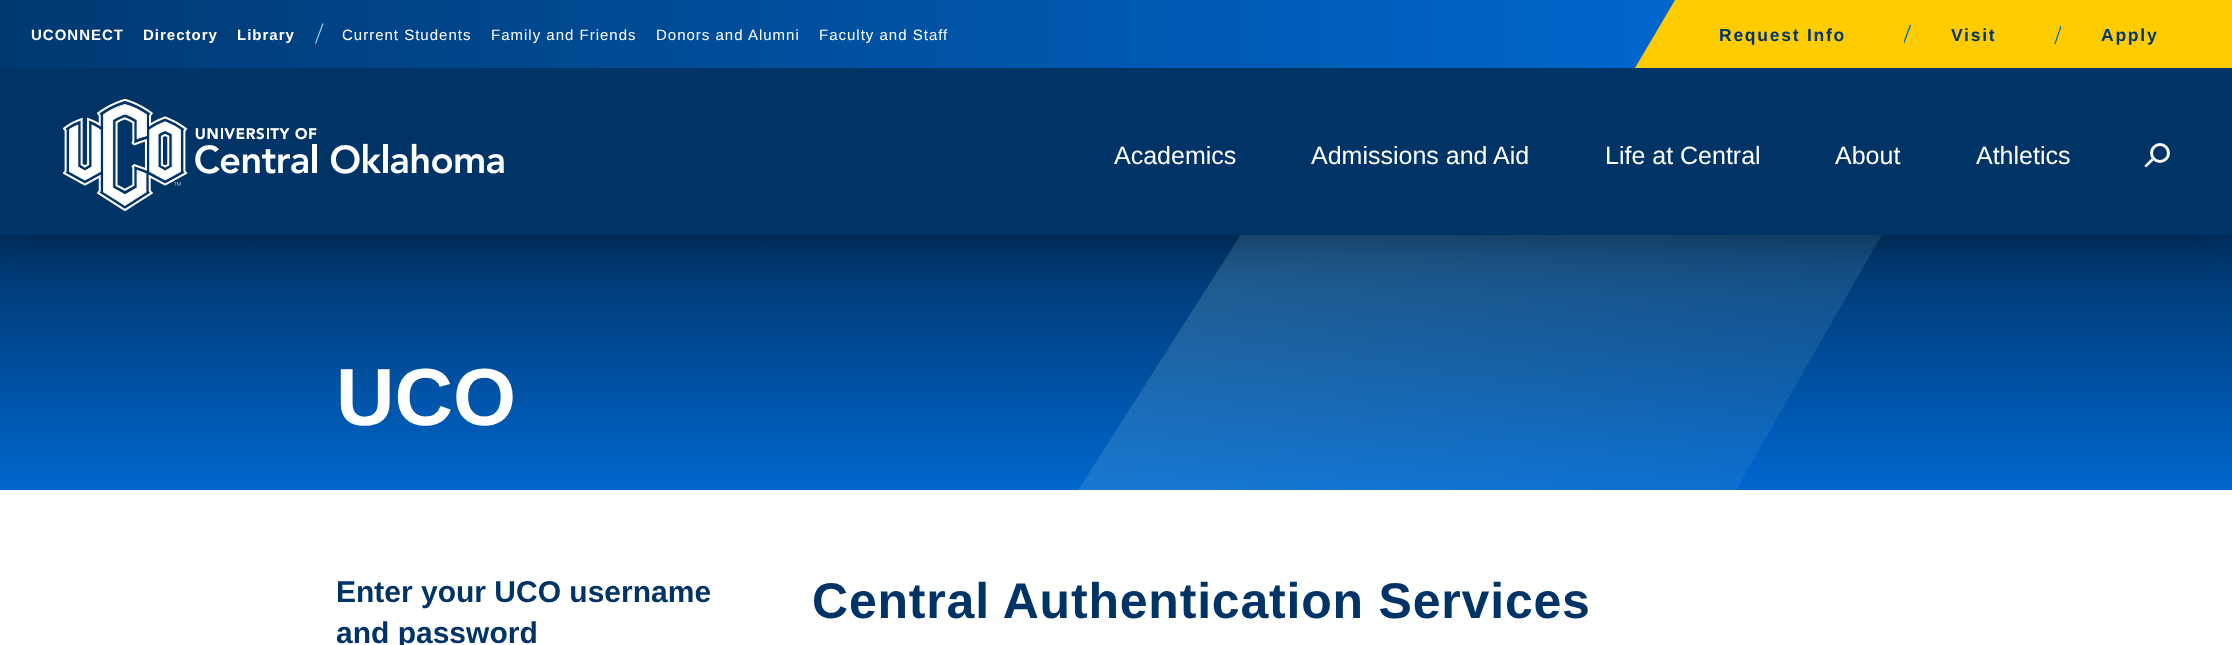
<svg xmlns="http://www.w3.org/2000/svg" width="2232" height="645">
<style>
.a{font:bold 17.5px Liberation Sans;letter-spacing:1.75px;fill:#036}
.b{font:bold 15px Liberation Sans;letter-spacing:1px;fill:#fff}
.c{font:15px Liberation Sans;letter-spacing:1px;fill:#fff}
.d{font:25px Liberation Sans;fill:#fff}
.e{font:bold 81px Liberation Sans;fill:#fff}
.f{font:bold 30px Liberation Sans;fill:#036}
.g{font:bold 50px Liberation Sans;letter-spacing:0.8px;fill:#036}
</style>
<defs>
<linearGradient id="g1" gradientUnits="userSpaceOnUse" x1="1116" y1="235" x2="1116" y2="490"><stop offset="0" stop-color="#036"/><stop offset="1" stop-color="#0067ce"/></linearGradient>
<clipPath id="clip1"><path d="M826 235h1195v255H826z"/></clipPath>
<linearGradient id="g2" gradientUnits="userSpaceOnUse" x1="1269" y1="274" x2="1514" y2="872"><stop offset="0" stop-color="#9ad4e9" stop-opacity="0.2"/><stop offset="1" stop-color="#9ad4e9" stop-opacity="0"/></linearGradient>
<linearGradient id="g3" gradientUnits="userSpaceOnUse" x1="1645" y1="34" x2="-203" y2="34"><stop offset="0" stop-color="#06c"/><stop offset="1" stop-color="#036"/></linearGradient>
<clipPath id="clip2"><path d="M1635 0h558v68H1635z"/></clipPath>
<clipPath id="clip3"><path d="M1904 24h7v20H1904z"/></clipPath>
<clipPath id="clip4"><path d="M2054 24h7v20H2054z"/></clipPath>
</defs>
<rect width="100%" height="100%" fill="#fff"/>
<path fill="url(#g1)" d="M0 235h2232v255H0z"/>
<g clip-path="url(#clip1)">
<path fill="url(#g2)" d="M826 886l570-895h625l-511 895z"/>
</g>
<path fill="#0000004d" filter="blur(22px)" d="M0 5h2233v235H0z"/>
<path fill="#036" d="M0 68h2232v167H0z"/>
<path fill="#06c" d="M1645 0h30v51H1645z"/>
<path fill="url(#g3)" d="M0 0h1645v68H0z"/>
<path fill="#fc0" d="M2193 0h39v68H2193z"/>
<g clip-path="url(#clip2)">
<path fill="#fc0" d="M1675 0h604v68h-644z"/>
</g>
<g clip-path="url(#clip3)">
<path fill="none" stroke="#06c" stroke-width="1.2" d="M1903 45l7.5-20"/>
</g>
<g clip-path="url(#clip4)">
<path fill="none" stroke="#06c" stroke-width="1.2" d="M2054.5 45l7-20"/>
</g>
<path fill="none" stroke="#9ad4e9" stroke-width="1.2" d="M315.5 43.5l7.5-20"/>
<image href="1.png" x="63" y="99" width="441" height="112"/>
<circle fill="none" stroke="#fff" stroke-width="3" cx="2160" cy="153" r="8.5"/>
<path fill="#fff" d="M2144.5 165.5l7-7l2 2l-7.5 7z"/>
<text class="a" x="1719" y="41">Request Info</text>
<text class="a" x="1951" y="41">Visit</text>
<text class="a" x="2101" y="41">Apply</text>
<text class="b" x="31" y="40">UCONNECT</text>
<text class="b" x="143" y="40">Directory</text>
<text class="b" x="237" y="40">Library</text>
<text class="c" x="342" y="40">Current Students</text>
<text class="c" x="491" y="40">Family and Friends</text>
<text class="c" x="656" y="40">Donors and Alumni</text>
<text class="c" x="819" y="40">Faculty and Staff</text>
<text class="d" x="1114" y="164">Academics</text>
<text class="d" x="1311" y="164">Admissions and Aid</text>
<text class="d" x="1605" y="164">Life at Central</text>
<text class="d" x="1835" y="164">About</text>
<text class="d" x="1976" y="164">Athletics</text>
<text class="e" x="336" y="425">UCO</text>
<text class="f" x="336" y="602">Enter your UCO username</text>
<text class="f" x="336" y="643">and password</text>
<text class="g" x="812" y="618">Central Authentication Services</text>
</svg>
